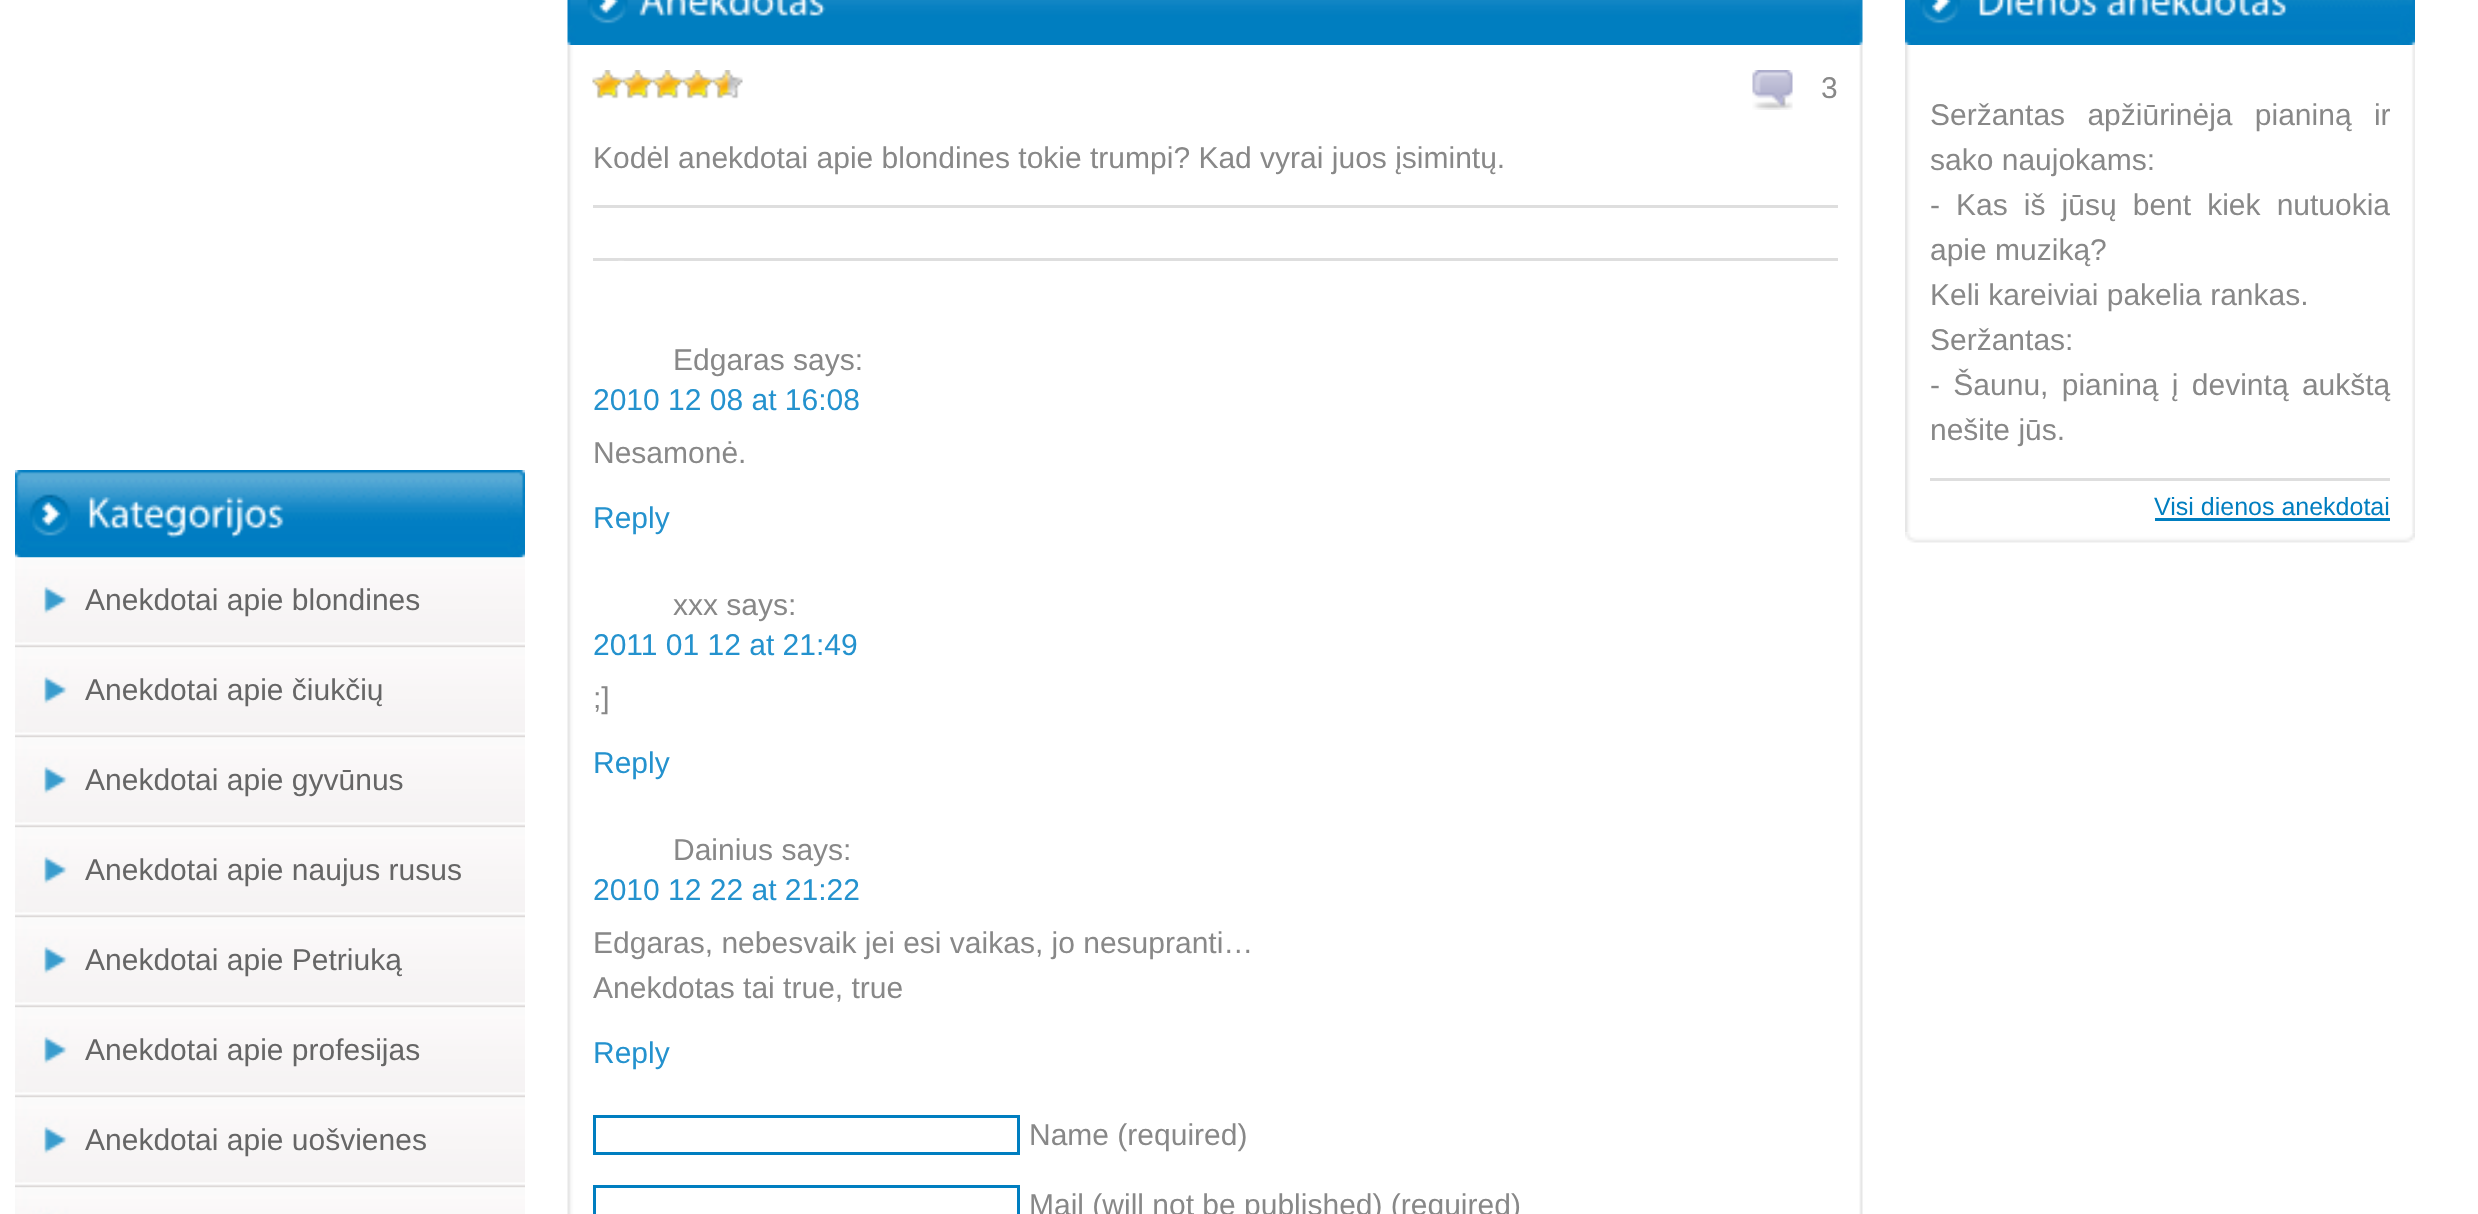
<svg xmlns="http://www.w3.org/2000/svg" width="2478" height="1214">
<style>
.a{font:30px Liberation Sans;fill:#888}
.b{font:30px Liberation Sans;fill:#2492ce}
.c{font:25px Liberation Sans;fill:#007ec0}
.d{font:30px Liberation Sans;fill:#666}
</style>
<rect width="100%" height="100%" fill="#fff"/>
<image href="1.png" x="567" y="0" width="1296" height="45"/>
<image href="2.png" x="639" y="0" width="187" height="16"/>
<image href="3.png" x="567" y="45" width="1296" height="1169"/>
<path fill="#dedede" d="M593 205h1245v3H593z"/>
<image href="4.png" x="592" y="70" width="31" height="29"/>
<image href="5.png" x="622" y="70" width="31" height="29"/>
<image href="5.png" x="652" y="70" width="31" height="29"/>
<image href="5.png" x="682" y="70" width="31" height="29"/>
<image href="6.png" x="712" y="70" width="31" height="29"/>
<image href="7.png" x="1752" y="70" width="41" height="40"/>
<path fill="#dedede" d="M593 258h1245v3H593z"/>
<image href="8.png" x="618" y="260" width="6" height="1"/>
<path fill="none" stroke="#007ec0" stroke-width="3" d="M594.5 1116.5h424v37H594.5z"/>
<path fill="none" stroke="#007ec0" stroke-width="3" d="M594.5 1186.5h424v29H594.5z"/>
<image href="9.png" x="1905" y="0" width="510" height="45"/>
<image href="10.png" x="1978" y="0" width="121" height="16"/>
<image href="11.png" x="2106" y="0" width="182" height="16"/>
<image href="12.png" x="1905" y="45" width="510" height="488"/>
<path fill="#dedede" d="M1930 478h460v3H1930z"/>
<path fill="#007ec0" d="M2155 518h235v3H2155z"/>
<image href="13.png" x="1905" y="532" width="510" height="11"/>
<image href="14.png" x="15" y="470" width="510" height="88"/>
<image href="15.png" x="88" y="496" width="196" height="42"/>
<image href="16.png" x="15" y="557" width="510" height="91"/>
<image href="17.png" x="15" y="647" width="510" height="91"/>
<image href="18.png" x="15" y="737" width="510" height="91"/>
<image href="18.png" x="15" y="827" width="510" height="91"/>
<image href="18.png" x="15" y="917" width="510" height="91"/>
<image href="18.png" x="15" y="1007" width="510" height="91"/>
<image href="18.png" x="15" y="1097" width="510" height="91"/>
<image href="19.png" x="15" y="1187" width="510" height="27"/>
<text class="a" x="1821" y="98">3</text>
<text class="a" x="593" y="168">Kodėl anekdotai apie blondines tokie trumpi? Kad vyrai juos įsimintų.</text>
<text class="a" x="673" y="370">Edgaras says:</text>
<text class="b" x="593" y="410">2010 12 08 at 16:08</text>
<text class="a" x="593" y="463">Nesamonė.</text>
<text class="b" x="593" y="528">Reply</text>
<text class="a" x="673" y="615">xxx says:</text>
<text class="b" x="593" y="655">2011 01 12 at 21:49</text>
<text class="a" x="593" y="708">;]</text>
<text class="b" x="593" y="773">Reply</text>
<text class="a" x="673" y="860">Dainius says:</text>
<text class="b" x="593" y="900">2010 12 22 at 21:22</text>
<text class="a" x="593" y="953">Edgaras, nebesvaik jei esi vaikas, jo nesupranti…</text>
<text class="a" x="593" y="998">Anekdotas tai true, true</text>
<text class="b" x="593" y="1063">Reply</text>
<text class="a" x="1029" y="1145">Name (required)</text>
<text class="a" x="1029" y="1215">Mail (will not be published) (required)</text>
<text class="a" x="1930" y="125" word-spacing="14">Seržantas apžiūrinėja pianiną ir</text>
<text class="a" x="1930" y="170">sako naujokams:</text>
<text class="a" x="1930" y="215" word-spacing="7.75">- Kas iš jūsų bent kiek nutuokia</text>
<text class="a" x="1930" y="260">apie muziką?</text>
<text class="a" x="1930" y="305">Keli kareiviai pakelia rankas.</text>
<text class="a" x="1930" y="350">Seržantas:</text>
<text class="a" x="1930" y="395" word-spacing="5">- Šaunu, pianiną į devintą aukštą</text>
<text class="a" x="1930" y="440">nešite jūs.</text>
<text class="c" x="2154" y="515">Visi dienos anekdotai</text>
<text class="d" x="85" y="610">Anekdotai apie blondines</text>
<text class="d" x="85" y="700">Anekdotai apie čiukčių</text>
<text class="d" x="85" y="790">Anekdotai apie gyvūnus</text>
<text class="d" x="85" y="880">Anekdotai apie naujus rusus</text>
<text class="d" x="85" y="970">Anekdotai apie Petriuką</text>
<text class="d" x="85" y="1060">Anekdotai apie profesijas</text>
<text class="d" x="85" y="1150">Anekdotai apie uošvienes</text>
</svg>
